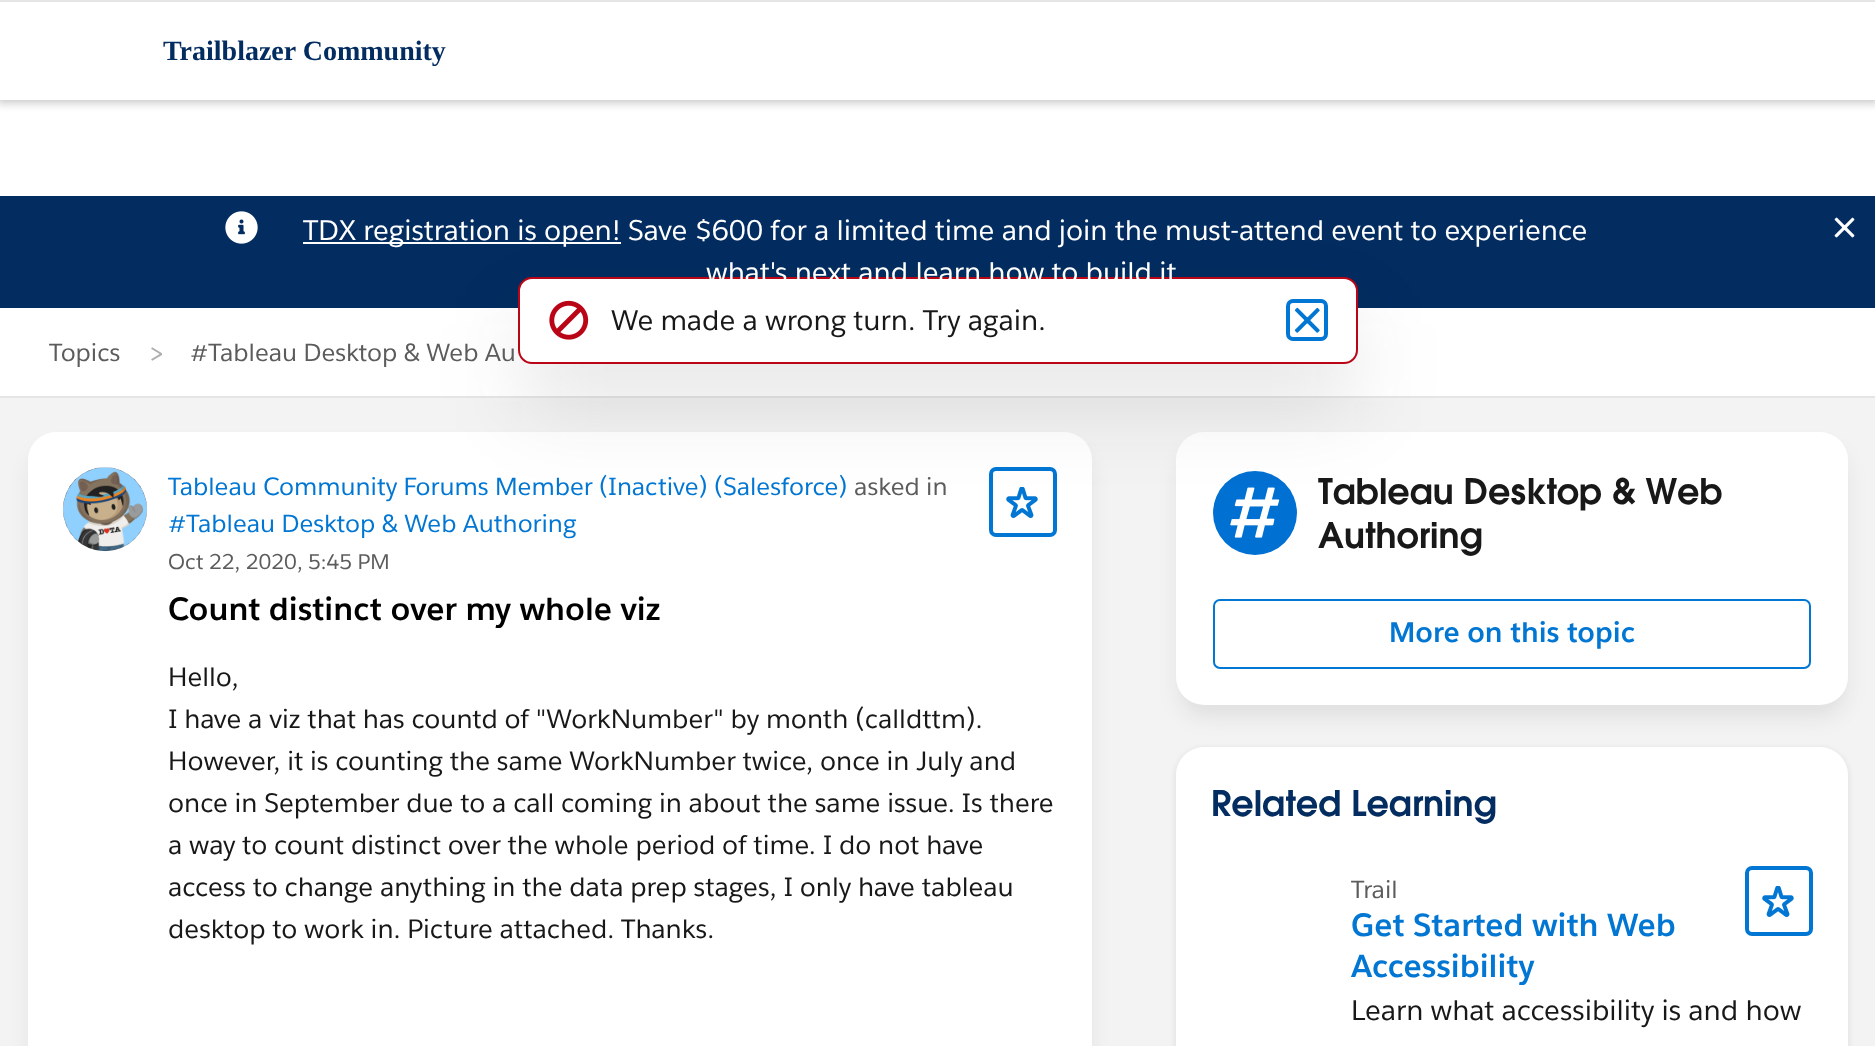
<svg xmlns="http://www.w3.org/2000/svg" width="1875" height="1046">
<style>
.a{font:bold 28px Liberation Serif;fill:#032d60}
.b{font:28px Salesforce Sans;fill:#fff}
.c{font:28px Salesforce Sans;fill:#181818}
.d{font:24.5px Salesforce Sans;fill:#5c5c5c}
.e{font:28px Salesforce Sans;fill:#aeaeae}
.f{font:24.5px Salesforce Sans;fill:#0176d3}
.g{font:21px Salesforce Sans;fill:#5c5c5c}
.h{font:bold 31.5px Salesforce Sans;fill:#000}
.i{font:26.25px Salesforce Sans;fill:#181818}
.j{font:600 35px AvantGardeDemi;fill:#181818}
.k{font:bold 28px Salesforce Sans;fill:#0176d3}
.l{font:600 35px AvantGardeDemi;fill:#032d60}
.m{font:bold 31.5px Salesforce Sans;fill:#0176d3}
</style>
<rect width="100%" height="100%" fill="#fff"/>
<path fill="#18181829" filter="blur(3.5px)" d="M-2 2h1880v103H-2z"/>
<path fill="#18181814" filter="blur(2px)" d="M0 0h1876v100H0z"/>
<path fill="#fff" d="M0 2h1875v98H0z"/>
<path fill="#e5e5e5" d="M0 0h1875v2H0z"/>
<path fill="#032d60" d="M0 196h1875v112H0z"/>
<image href="1.png" x="225" y="211" width="33" height="33"/>
<path fill="#fff" d="M303 242h318v2H303z"/>
<image href="2.png" x="1834" y="217" width="21" height="21"/>
<path fill="#f3f3f3" d="M0 398h1875v648H0z"/>
<path fill="#e5e5e5" d="M0 396h1875v2H0z"/>
<rect fill="#18181817" filter="blur(10.5px)" x="32" y="450" width="1057" height="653" rx="25"/>
<rect fill="#fff" x="28" y="432" width="1064" height="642" rx="28"/>
<rect fill="none" stroke="#0176d3" stroke-width="4" x="991" y="469" width="64" height="66" rx="5"/>
<image href="6.png" x="1006" y="487" width="32" height="31"/>
<rect fill="#1818180f" filter="blur(2.5px)" x="1174" y="747" width="676" height="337" rx="30"/>
<rect fill="#fff" x="1176" y="747" width="672" height="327" rx="28"/>
<rect fill="#18181817" filter="blur(10.5px)" x="1180" y="450" width="665" height="266" rx="25"/>
<rect fill="#fff" x="1176" y="432" width="672" height="273" rx="28"/>
<circle fill="#0070d2" cx="1255" cy="513" r="42"/>
<image href="7.png" x="1230" y="487" width="50" height="51"/>
<rect fill="#1818181f" filter="blur(42px)" x="522" y="322" width="833" height="81" rx="11"/>
<rect fill="#fff" stroke="#ba0517" stroke-width="2" x="519" y="278" width="838" height="85" rx="13"/>
<image href="3.png" x="549" y="300" width="40" height="40"/>
<rect fill="none" stroke="#0176d3" stroke-width="4" x="1288" y="301" width="38" height="38" rx="5"/>
<image href="4.png" x="1294" y="307" width="26" height="26"/>
<circle fill="#e5e5e5" cx="105" cy="509" r="42"/>
<image href="5.png" x="63" y="467" width="84" height="85"/>
<rect fill="none" stroke="#0176d3" stroke-width="2" x="1214" y="600" width="596" height="68" rx="6"/>
<rect fill="none" stroke="#0176d3" stroke-width="4" x="1747" y="868" width="64" height="66" rx="5"/>
<image href="6.png" x="1762" y="886" width="32" height="31"/>
<text class="a" x="163" y="60">Trailblazer Community</text>
<text class="b" x="303" y="240">TDX registration is open! Save $600 for a limited time and join the must-attend event to experience</text>
<text class="b" x="706" y="282">what's next and learn how to build it</text>
<text class="c" x="611" y="330">We made a wrong turn. Try again.</text>
<text class="d" x="49" y="361">Topics</text>
<text class="e" x="148" y="362">&gt;</text>
<text class="d" x="190" y="361">#Tableau Desktop &amp; Web Au</text>
<text class="f" x="168" y="495">Tableau Community Forums Member (Inactive) (Salesforce)</text>
<text class="d" x="854" y="495">asked in</text>
<text class="f" x="168" y="532">#Tableau Desktop &amp; Web Authoring</text>
<text class="g" x="168" y="569">Oct 22, 2020, 5:45 PM</text>
<text class="h" x="168" y="620">Count distinct over my whole viz</text>
<text class="i" x="168" y="686">Hello,</text>
<text class="i" x="168" y="728">I have a viz that has countd of "WorkNumber" by month (calldttm).</text>
<text class="i" x="168" y="770">However, it is counting the same WorkNumber twice, once in July and</text>
<text class="i" x="168" y="812">once in September due to a call coming in about the same issue. Is there</text>
<text class="i" x="168" y="854">a way to count distinct over the whole period of time. I do not have</text>
<text class="i" x="168" y="896">access to change anything in the data prep stages, I only have tableau</text>
<text class="i" x="168" y="938">desktop to work in. Picture attached. Thanks.</text>
<text class="j" x="1318" y="504">Tableau Desktop &amp; Web</text>
<text class="j" x="1318" y="548">Authoring</text>
<text class="k" x="1389" y="642">More on this topic</text>
<text class="l" x="1211" y="816">Related Learning</text>
<text class="d" x="1351" y="898">Trail</text>
<text class="m" x="1351" y="936">Get Started with Web</text>
<text class="m" x="1351" y="977">Accessibility</text>
<text class="c" x="1351" y="1020">Learn what accessibility is and how</text>
</svg>
